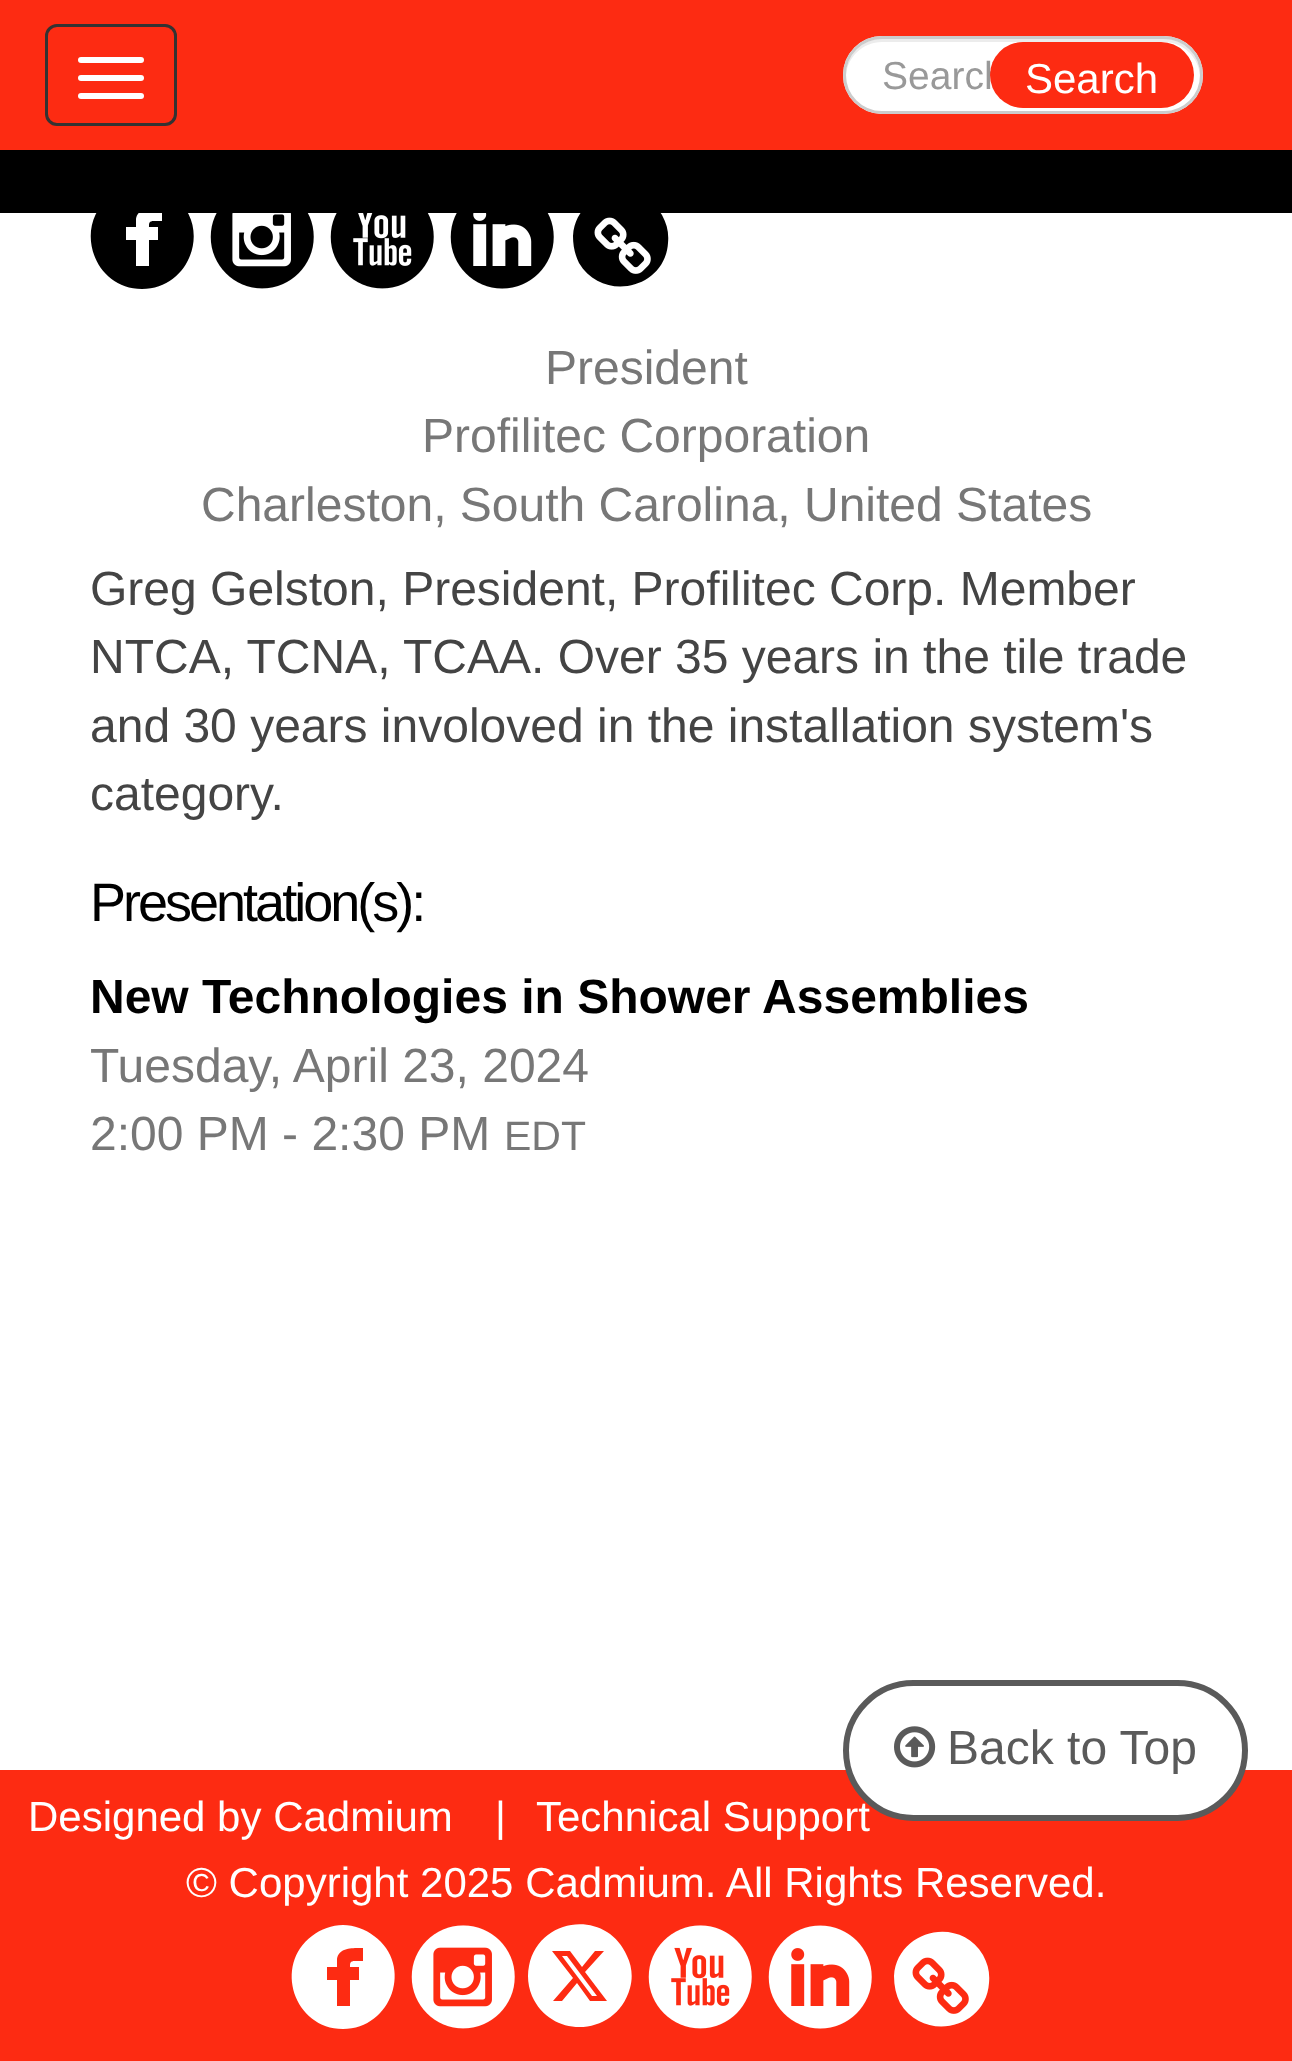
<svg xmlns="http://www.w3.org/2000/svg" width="1292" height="2061">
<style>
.a{font:39px Liberation Sans;fill:#999}
.b{font:42px Liberation Sans;fill:#fff}
.c{font:48px Liberation Sans;fill:#777}
.d{font:48px Liberation Sans;fill:#444}
.e{font:54px Liberation Sans;letter-spacing:-3px;fill:#000}
.f{font:bold 48px Liberation Sans;fill:#000}
.g{font:41px Liberation Sans;fill:#777}
.h{font:48px Liberation Sans;fill:#5a5a5a}
</style>
<rect width="100%" height="100%" fill="#fff"/>
<path fill="#fd2b12" d="M0 0h1292v150H0z"/>
<rect fill="none" stroke="#333" stroke-width="3" x="46.5" y="25.5" width="129" height="99" rx="10.5"/>
<rect fill="#fff" x="78" y="57" width="66" height="6" rx="3"/>
<rect fill="#fff" x="78" y="75" width="66" height="6" rx="3"/>
<rect fill="#fff" x="78" y="93" width="66" height="6" rx="3"/>
<rect fill="#fff" x="843" y="36" width="360" height="78" rx="39"/>
<path fill="#ececec" d="M882 42h282c19 0 35 15 36 34v-1c0-20-16-36-36-36h-282c-20 0-36 16-36 36v1c1-19 17-34 36-34z"/>
<rect fill="none" stroke="#ccc" stroke-width="3" x="844.5" y="37.5" width="357" height="75" rx="37.5"/>
<path fill="#000" d="M142 185c11 0 22 4 31 11c40 29 18 93-31 93c-49 0-70-64-31-93c9-7 20-11 31-11zm20 23c-10 0-24-1-26 11v8h-10v13h10v26h13v-26h9v-13h-9c0-4 0-6 5-6h8z"/>
<path fill="#000" d="M662 215c5 9 7 18 6 28c-3 46-65 60-89 20c-4-8-6-17-6-27c3-46 65-61 89-21z"/>
<path fill="#000" d="M0 150h1292v63H0z"/>
<image href="1.png" x="210" y="213" width="104" height="76"/>
<image href="2.png" x="330" y="213" width="104" height="76"/>
<image href="3.png" x="450" y="213" width="104" height="76"/>
<image href="4.png" x="594" y="217" width="57" height="57"/>
<path fill="#fd2b12" d="M0 1770h1292v291H0z"/>
<rect fill="#fff" stroke="#5a5a5a" stroke-width="6" x="846" y="1683" width="399" height="135" rx="67.5"/>
<image href="5.png" x="894" y="1726" width="42" height="42"/>
<path fill="#fff" d="M343 1925c11 0 22 4 31 11c40 29 18 93-31 93c-49 0-70-64-31-93c9-7 20-11 31-11zm20 23c-10 0-24-1-26 11v8h-10v13h10v26h13v-26h9v-13h-9c0-4 0-6 5-6h8z"/>
<image href="6.png" x="411" y="1925" width="104" height="104"/>
<path fill="#fff" d="M562 1956h5l30 40h-5zm65 0c5 10 6 22 3 32c-13 48-78 53-98 8c-4-10-5-20-3-30c10-50 78-57 98-10zm-37 45h17l-22-29l19-21h-9l-13 16l-12-16h-18l21 27l-20 23h9l15-18z"/>
<image href="7.png" x="648" y="1925" width="104" height="104"/>
<image href="8.png" x="768" y="1925" width="104" height="104"/>
<path fill="#fff" d="M983 1955c5 9 7 18 6 28c-3 46-65 60-89 20c-4-8-6-17-6-27c3-46 65-61 89-21z"/>
<image href="9.png" x="912" y="1957" width="57" height="57"/>
<text class="a" x="882" y="89">Search</text>
<rect fill="#fd2b12" x="990" y="42" width="204" height="66" rx="33"/>
<text class="b" x="1025" y="93">Search</text>
<text class="c" x="545" y="384">President</text>
<text class="c" x="422" y="452">Profilitec Corporation</text>
<text class="c" x="201" y="521">Charleston, South Carolina, United States</text>
<text class="d" x="90" y="605">Greg Gelston, President, Profilitec Corp. Member</text>
<text class="d" x="90" y="673">NTCA, TCNA, TCAA. Over 35 years in the tile trade</text>
<text class="d" x="90" y="742">and 30 years involoved in the installation system's</text>
<text class="d" x="90" y="810">category.</text>
<text class="e" x="90" y="921">Presentation(s):</text>
<text class="f" x="90" y="1013">New Technologies in Shower Assemblies</text>
<text class="c" x="90" y="1082">Tuesday, April 23, 2024</text>
<text class="c" x="90" y="1150">2:00 PM - 2:30 PM</text>
<text class="g" x="504" y="1150">EDT</text>
<text class="h" x="947" y="1764">Back to Top</text>
<text class="b" x="28" y="1831">Designed by Cadmium</text>
<text class="b" x="495" y="1831">|</text>
<text class="b" x="536" y="1831">Technical Support</text>
<text class="b" x="186" y="1897">© Copyright 2025 Cadmium. All Rights Reserved.</text>
</svg>
